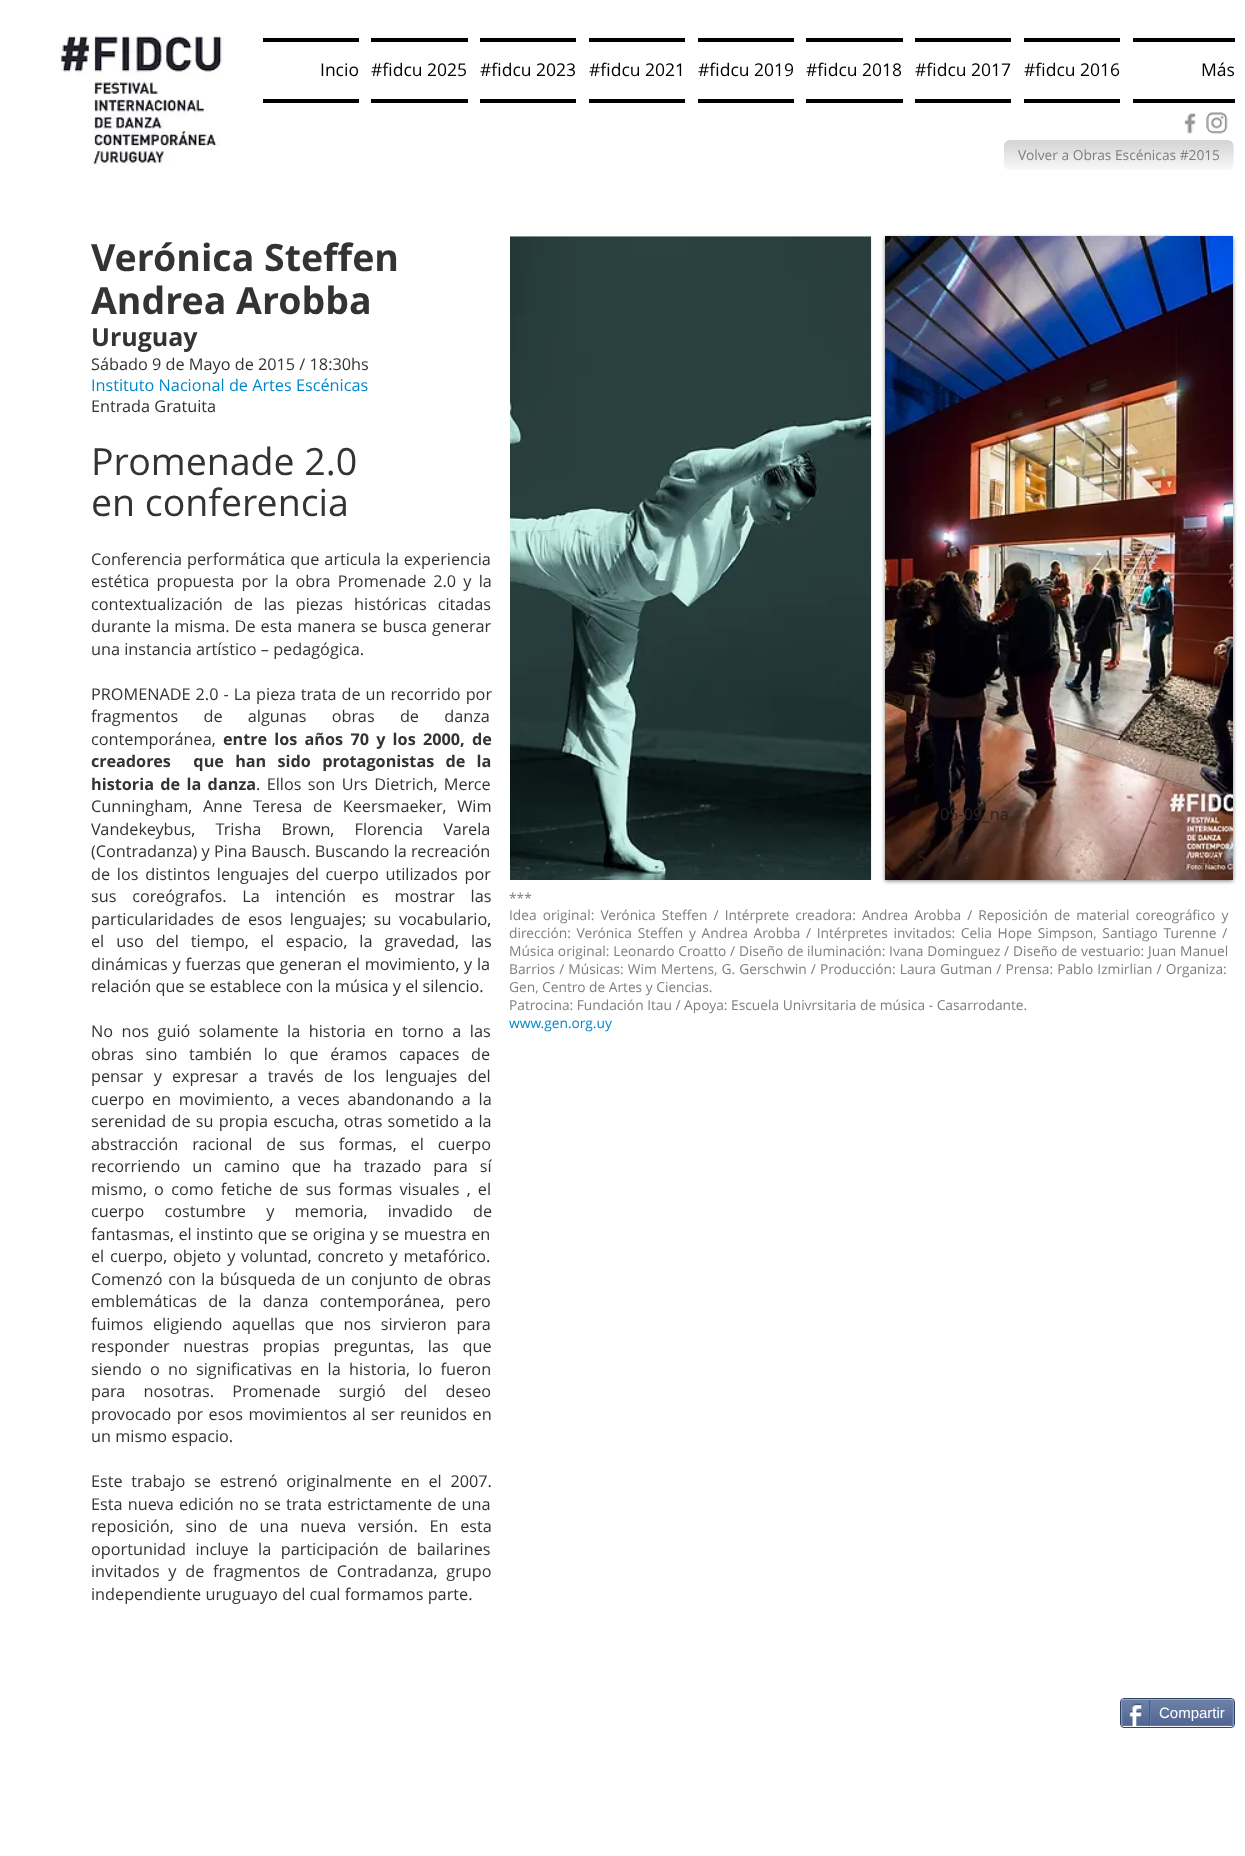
<svg xmlns="http://www.w3.org/2000/svg" width="1245" height="1856">
<style>
.a{font:17.5px Open Sans;fill:#000}
.b{font:13.75px Open Sans;fill:#7f7e7e}
.c{font:bold 37.5px Open Sans;fill:#333}
.d{font:bold 25px Open Sans;fill:#333}
.e{font:16.25px Open Sans;fill:#333}
.f{font:16.25px Open Sans;fill:#0088cb}
.g{font:37.5px Open Sans;fill:#333}
.h{font:bold 16.25px Open Sans;fill:#333}
.i{font:16.25px Open Sans;fill:#34201a}
.j{font:15px Liberation Sans;fill:#805e4f}
.k{font:13.75px Open Sans;fill:#0088cb}
.l{font:15px Liberation Sans;fill:#fff}
</style>
<rect width="100%" height="100%" fill="#fff"/>
<image href="1.png" x="59" y="35" width="165" height="130"/>
<path fill="#000" d="M263 38h96v4H263z"/>
<path fill="#000" d="M263 99h96v4H263z"/>
<path fill="#000" d="M371 38h97v4H371z"/>
<path fill="#000" d="M371 99h97v4H371z"/>
<path fill="#000" d="M480 38h96v4H480z"/>
<path fill="#000" d="M480 99h96v4H480z"/>
<path fill="#000" d="M589 38h96v4H589z"/>
<path fill="#000" d="M589 99h96v4H589z"/>
<path fill="#000" d="M698 38h96v4H698z"/>
<path fill="#000" d="M698 99h96v4H698z"/>
<path fill="#000" d="M806 38h97v4H806z"/>
<path fill="#000" d="M806 99h97v4H806z"/>
<path fill="#000" d="M915 38h96v4H915z"/>
<path fill="#000" d="M915 99h96v4H915z"/>
<path fill="#000" d="M1024 38h96v4H1024z"/>
<path fill="#000" d="M1024 99h96v4H1024z"/>
<path fill="#000" d="M1133 38h102v4H1133z"/>
<path fill="#000" d="M1133 99h102v4H1133z"/>
<image href="2.png" x="1184" y="113" width="12" height="21"/>
<image href="3.png" x="1206" y="112" width="22" height="22"/>
<image href="4.png" x="1004" y="140" width="230" height="30"/>
<image href="5.png" x="510" y="236" width="362" height="644"/>
<path fill="#00000080" filter="blur(2px)" d="M885 238h348v643H885z"/>
<image href="6.png" x="885" y="236" width="348" height="644"/>
<rect fill="none" stroke="#2d4565" x="1120.5" y="1698.5" width="114" height="29" rx="3.5"/>
<image href="7.png" x="1121" y="1700" width="113" height="27"/>
<path fill="none" stroke="#9aabc6" stroke-width="1.2" d="M1122.5 1700l1.5-.5h107l1.5 .5"/>
<path fill="none" stroke="#6f83ad" stroke-width="1.2" d="M1232.5 1700l.5 1v23l-.5 1"/>
<path fill="none" stroke="#6176a3" stroke-width="1.2" d="M1232.5 1725l-1.5 .5h-107l-1.5-.5"/>
<path fill="none" stroke="#6f83ad" stroke-width="1.2" d="M1122.5 1725l-.5-1v-23l.5-1"/>
<image href="8.png" x="1129" y="1703" width="13" height="24"/>
<path fill="#425e85" d="M1149 1700h1v26H1149z"/>
<path fill="#6176a3" d="M1150 1700h1v25H1150z"/>
<text class="a" x="320" y="76">Incio</text>
<text class="a" x="371" y="76">#fidcu 2025</text>
<text class="a" x="480" y="76">#fidcu 2023</text>
<text class="a" x="589" y="76">#fidcu 2021</text>
<text class="a" x="698" y="76">#fidcu 2019</text>
<text class="a" x="806" y="76">#fidcu 2018</text>
<text class="a" x="915" y="76">#fidcu 2017</text>
<text class="a" x="1024" y="76">#fidcu 2016</text>
<text class="a" x="1201" y="76">Más</text>
<text class="b" x="1018" y="160">Volver a Obras Escénicas #2015</text>
<text class="c" x="91" y="271">Verónica Steffen</text>
<text class="c" x="91" y="314">Andrea Arobba</text>
<text class="d" x="91" y="346">Uruguay</text>
<text class="e" x="91" y="370">Sábado 9 de Mayo de 2015 / 18:30hs</text>
<text class="f" x="91" y="391">Instituto Nacional de Artes Escénicas</text>
<text class="e" x="91" y="412">Entrada Gratuita</text>
<text class="g" x="91" y="475">Promenade 2.0</text>
<text class="g" x="91" y="516">en conferencia</text>
<text class="e" x="91" y="565" word-spacing="0.75">Conferencia performática que articula la experiencia</text>
<text class="e" x="91" y="587" word-spacing="3">estética propuesta por la obra Promenade 2.0 y la</text>
<text class="e" x="91" y="610" word-spacing="6.75">contextualización de las piezas históricas citadas</text>
<text class="e" x="91" y="632" word-spacing="0.75">durante la misma. De esta manera se busca generar</text>
<text class="e" x="91" y="655">una instancia artístico – pedagógica.</text>
<text class="e" x="91" y="700" word-spacing="0.75">PROMENADE 2.0 - La pieza trata de un recorrido por</text>
<text class="e" x="91" y="722" word-spacing="21">fragmentos de algunas obras de danza</text>
<text class="e" x="91" y="745">contemporánea,</text>
<text class="h" x="223" y="745" word-spacing="3">entre los años 70 y los 2000, de</text>
<text class="h" xml:space="preserve" x="91" y="767" word-spacing="7">creadores  que han sido protagonistas de la</text>
<text class="h" x="91" y="790" word-spacing="2.1">historia de la danza</text>
<text class="e" x="256" y="790" word-spacing="2.1">. Ellos son Urs Dietrich, Merce</text>
<text class="e" x="91" y="812" word-spacing="6.5">Cunningham, Anne Teresa de Keersmaeker, Wim</text>
<text class="e" x="91" y="835" word-spacing="16">Vandekeybus, Trisha Brown, Florencia Varela</text>
<text class="e" x="91" y="857">(Contradanza) y Pina Bausch. Buscando la recreación</text>
<text class="e" x="91" y="880" word-spacing="2.5">de los distintos lenguajes del cuerpo utilizados por</text>
<text class="e" x="91" y="902" word-spacing="11.5">sus coreógrafos. La intención es mostrar las</text>
<text class="e" x="91" y="925" word-spacing="3.25">particularidades de esos lenguajes; su vocabulario,</text>
<text class="e" x="91" y="947" word-spacing="7.75">el uso del tiempo, el espacio, la gravedad, las</text>
<text class="e" x="91" y="970" word-spacing="0.5">dinámicas y fuerzas que generan el movimiento, y la</text>
<text class="e" x="91" y="992">relación que se establece con la música y el silencio.</text>
<text class="e" x="91" y="1037" word-spacing="4.25">No nos guió solamente la historia en torno a las</text>
<text class="e" x="91" y="1060" word-spacing="7.5">obras sino también lo que éramos capaces de</text>
<text class="e" x="91" y="1082" word-spacing="6">pensar y expresar a través de los lenguajes del</text>
<text class="e" x="91" y="1105" word-spacing="3.5">cuerpo en movimiento, a veces abandonando a la</text>
<text class="e" x="91" y="1127" word-spacing="1">serenidad de su propia escucha, otras sometido a la</text>
<text class="e" x="91" y="1150" word-spacing="9.75">abstracción racional de sus formas, el cuerpo</text>
<text class="e" x="91" y="1172" word-spacing="7.75">recorriendo un camino que ha trazado para sí</text>
<text class="e" x="91" y="1195" word-spacing="3">mismo, o como fetiche de sus formas visuales , el</text>
<text class="e" x="91" y="1217" word-spacing="16">cuerpo costumbre y memoria, invadido de</text>
<text class="e" x="91" y="1240" word-spacing="0.25">fantasmas, el instinto que se origina y se muestra en</text>
<text class="e" x="91" y="1262" word-spacing="1.5">el cuerpo, objeto y voluntad, concreto y metafórico.</text>
<text class="e" x="91" y="1285" word-spacing="1.25">Comenzó con la búsqueda de un conjunto de obras</text>
<text class="e" x="91" y="1307" word-spacing="7">emblemáticas de la danza contemporánea, pero</text>
<text class="e" x="91" y="1330" word-spacing="5.5">fuimos eligiendo aquellas que nos sirvieron para</text>
<text class="e" x="91" y="1352" word-spacing="9.5">responder nuestras propias preguntas, las que</text>
<text class="e" x="91" y="1375" word-spacing="4">siendo o no significativas en la historia, lo fueron</text>
<text class="e" x="91" y="1397" word-spacing="14">para nosotras. Promenade surgió del deseo</text>
<text class="e" x="91" y="1420" word-spacing="1.25">provocado por esos movimientos al ser reunidos en</text>
<text class="e" x="91" y="1442">un mismo espacio.</text>
<text class="e" x="91" y="1487" word-spacing="4.5">Este trabajo se estrenó originalmente en el 2007.</text>
<text class="e" x="91" y="1510" word-spacing="1">Esta nueva edición no se trata estrictamente de una</text>
<text class="e" x="91" y="1532" word-spacing="7.5">reposición, sino de una nueva versión. En esta</text>
<text class="e" x="91" y="1555" word-spacing="5.25">oportunidad incluye la participación de bailarines</text>
<text class="e" x="91" y="1577" word-spacing="4.5">invitados y de fragmentos de Contradanza, grupo</text>
<text class="e" x="91" y="1600">independiente uruguayo del cual formamos parte.</text>
<text class="i" x="940" y="820">05-09_na</text>
<text class="i" x="917" y="863">S</text>
<text class="j" x="1199" y="864">1/9</text>
<text class="b" x="509" y="903">***</text>
<text class="b" x="509" y="920" word-spacing="2.5">Idea original: Verónica Steffen / Intérprete creadora: Andrea Arobba / Reposición de material coreográfico y</text>
<text class="b" x="509" y="938" word-spacing="2.1">dirección: Verónica Steffen y Andrea Arobba / Intérpretes invitados: Celia Hope Simpson, Santiago Turenne /</text>
<text class="b" x="509" y="956" word-spacing="0.2">Música original: Leonardo Croatto / Diseño de iluminación: Ivana Dominguez / Diseño de vestuario: Juan Manuel</text>
<text class="b" x="509" y="974" word-spacing="0.5">Barrios / Músicas: Wim Mertens, G. Gerschwin / Producción: Laura Gutman / Prensa: Pablo Izmirlian / Organiza:</text>
<text class="b" x="509" y="992">Gen, Centro de Artes y Ciencias.</text>
<text class="b" x="509" y="1010">Patrocina: Fundación Itau / Apoya: Escuela Univrsitaria de música - Casarrodante.</text>
<text class="k" x="509" y="1028">www.gen.org.uy</text>
<text class="l" x="1159" y="1718">Compartir</text>
</svg>
